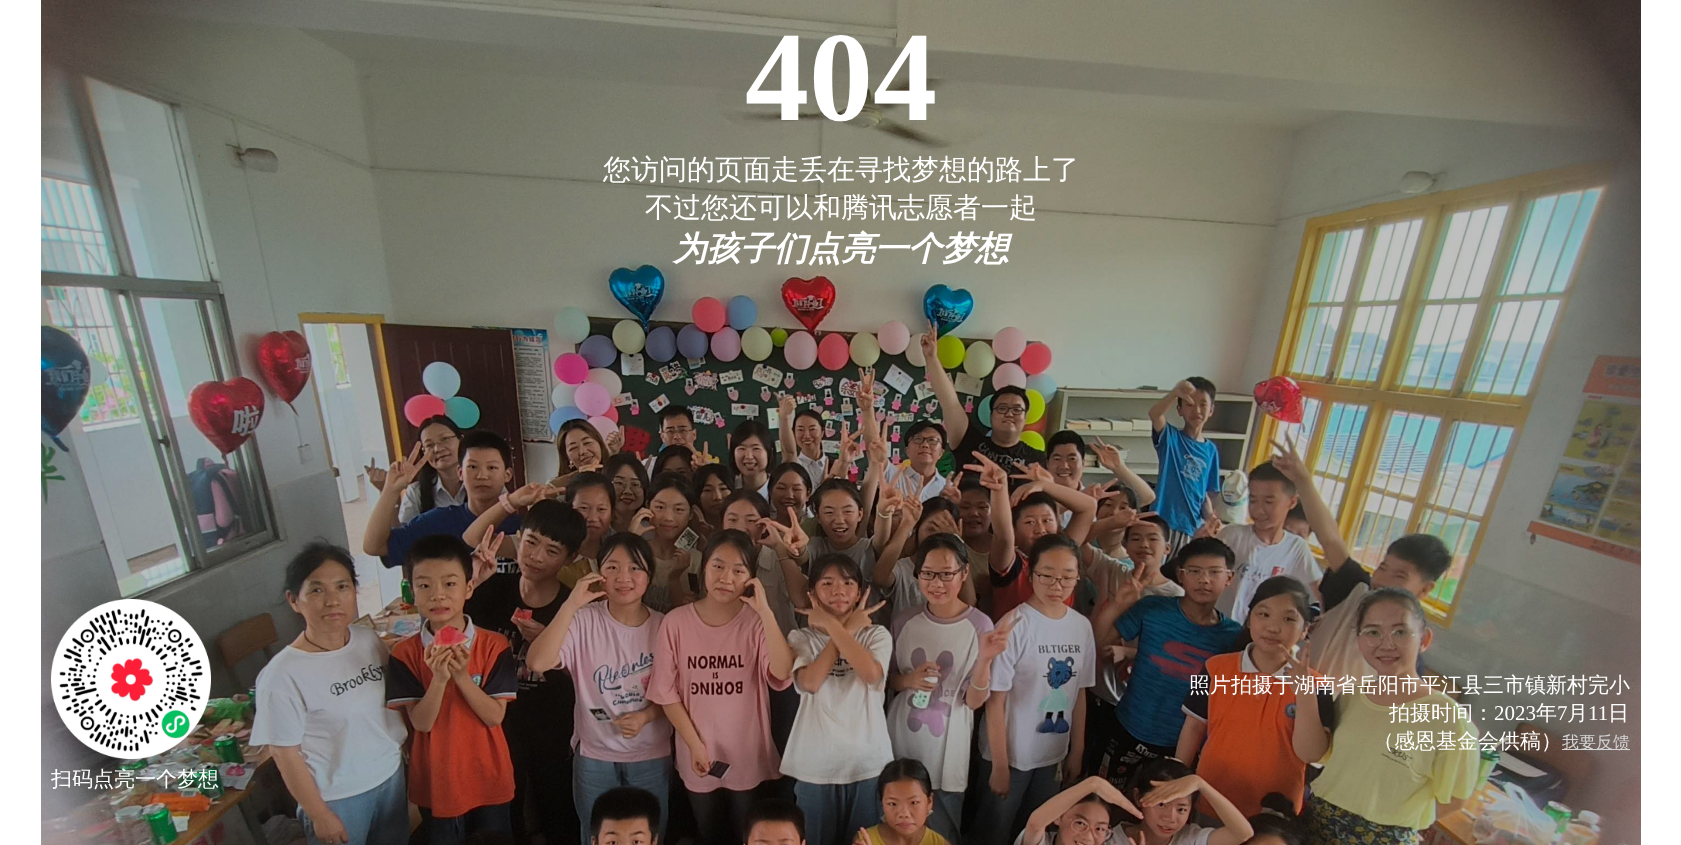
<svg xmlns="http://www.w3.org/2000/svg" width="1681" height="845">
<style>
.a{font:bold 128px Liberation Serif;fill:#fff}
.b{font:500 28px WenQuanYi Zen Hei;fill:#fff}
.c{font:italic bold 33.6px WenQuanYi Zen Hei;fill:#fff}
.d{font:500 21px WenQuanYi Zen Hei;fill:#fff}
.e{font:21px Liberation Serif;fill:#fff}
.f{font:500 17px WenQuanYi Zen Hei;fill:#d3d3d3}
</style>
<rect width="100%" height="100%" fill="#fff"/>
<image href="1.png" x="41" y="0" width="1600" height="845"/>
<image href="2.png" x="51" y="599" width="160" height="160"/>
<path fill="#d3d3d3" d="M1562 749h68v1H1562z"/>
<text class="a" x="745" y="120">404</text>
<text class="b" x="603" y="179">您访问的页面走丢在寻找梦想的路上了</text>
<text class="b" x="645" y="217">不过您还可以和腾讯志愿者一起</text>
<text class="c" x="673" y="260">为孩子们点亮一个梦想</text>
<text class="d" x="1189" y="692">照片拍摄于湖南省岳阳市平江县三市镇新村完小</text>
<text class="d" x="1389" y="720">拍摄时间：</text>
<text class="e" x="1494" y="720">2023</text>
<text class="d" x="1536" y="720">年</text>
<text class="e" x="1557" y="720">7</text>
<text class="d" x="1567" y="720">月</text>
<text class="e" x="1588" y="720">11</text>
<text class="d" x="1608" y="720">日</text>
<text class="d" x="1373" y="748">（感恩基金会供稿）</text>
<text class="f" x="1562" y="748">我要反馈</text>
<text class="d" x="51" y="786">扫码点亮一个梦想</text>
</svg>
